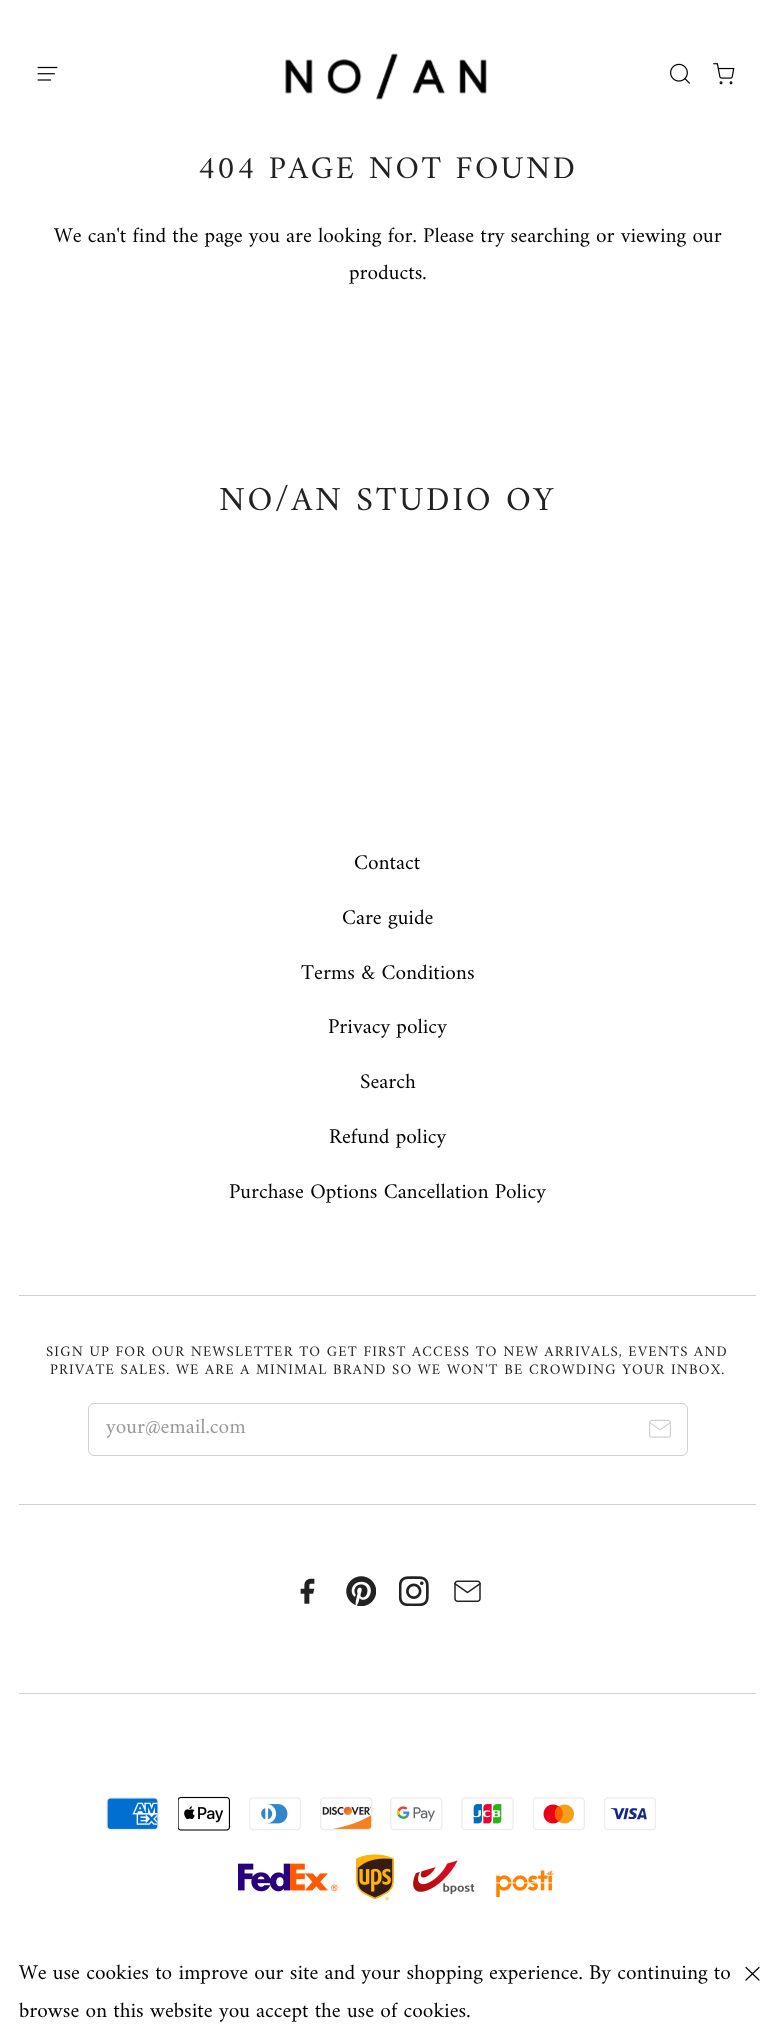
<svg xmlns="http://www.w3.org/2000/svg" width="775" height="2035">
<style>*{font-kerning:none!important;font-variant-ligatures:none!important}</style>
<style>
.a{font:32px Amiri;letter-spacing:2.6px;fill:#222}
.b{font:21.25px Amiri;fill:#000}
.c{font:34px Amiri;letter-spacing:2.75px;fill:#222}
.d{font:14.7px Amiri;letter-spacing:1.17px;fill:#222}
.e{font:21.25px Amiri;fill:#999}
</style>
<rect width="100%" height="100%" fill="#fff"/>
<image href="1.png" x="37" y="66" width="21" height="15"/>
<image href="2.png" x="285" y="53" width="202" height="47"/>
<image href="3.png" x="670" y="63" width="20" height="21"/>
<image href="4.png" x="713" y="63" width="22" height="22"/>
<path fill="#d0d0d0" d="M19 1295h737v1H19z"/>
<rect fill="none" stroke="#d0d0d0" x="88.5" y="1403.5" width="599" height="52" rx="5.5"/>
<image href="5.png" x="649" y="1419" width="22" height="19"/>
<path fill="#d0d0d0" d="M19 1504h737v1H19z"/>
<image href="6.png" x="300" y="1578" width="15" height="26"/>
<image href="7.png" x="346" y="1576" width="30" height="30"/>
<image href="8.png" x="399" y="1576" width="30" height="30"/>
<image href="9.png" x="454" y="1580" width="27" height="22"/>
<path fill="#d0d0d0" d="M19 1693h737v1H19z"/>
<image href="10.png" x="106" y="1797" width="53" height="34"/>
<image href="11.png" x="178" y="1796" width="52" height="35"/>
<image href="12.png" x="249" y="1797" width="52" height="34"/>
<image href="13.png" x="320" y="1797" width="53" height="34"/>
<image href="14.png" x="390" y="1797" width="53" height="34"/>
<image href="15.png" x="461" y="1797" width="53" height="34"/>
<image href="16.png" x="533" y="1797" width="52" height="34"/>
<image href="17.png" x="604" y="1797" width="52" height="34"/>
<image href="18.png" x="238" y="1863" width="100" height="29"/>
<image href="19.png" x="356" y="1854" width="38" height="47"/>
<image href="20.png" x="413" y="1860" width="62" height="35"/>
<image href="21.png" x="496" y="1870" width="58" height="27"/>
<path fill="none" stroke="#000" stroke-width="1.2" stroke-linecap="round" stroke-linejoin="round" d="M759 1967.5l-13 12.5m0-12.5l13 12.5"/>
<text class="a" x="198" y="178">404 PAGE NOT FOUND</text>
<text class="b" x="54" y="242">We can't find the page you are looking for. Please try searching or viewing our</text>
<text class="b" x="349" y="279">products.</text>
<text class="c" x="219" y="510">NO/AN STUDIO OY</text>
<text class="b" x="354" y="869">Contact</text>
<text class="b" x="342" y="924">Care guide</text>
<text class="b" x="301" y="979">Terms &amp; Conditions</text>
<text class="b" x="328" y="1033">Privacy policy</text>
<text class="b" x="360" y="1088">Search</text>
<text class="b" x="329" y="1143">Refund policy</text>
<text class="b" x="229" y="1198">Purchase Options Cancellation Policy</text>
<text class="d" x="46" y="1356">SIGN UP FOR OUR NEWSLETTER TO GET FIRST ACCESS TO NEW ARRIVALS, EVENTS AND</text>
<text class="d" x="50" y="1374">PRIVATE SALES. WE ARE A MINIMAL BRAND SO WE WON'T BE CROWDING YOUR INBOX.</text>
<text class="e" x="106" y="1433">your@email.com</text>
<text class="b" x="19" y="1979">We use cookies to improve our site and your shopping experience. By continuing to</text>
<text class="b" x="19" y="2017">browse on this website you accept the use of cookies.</text>
</svg>
